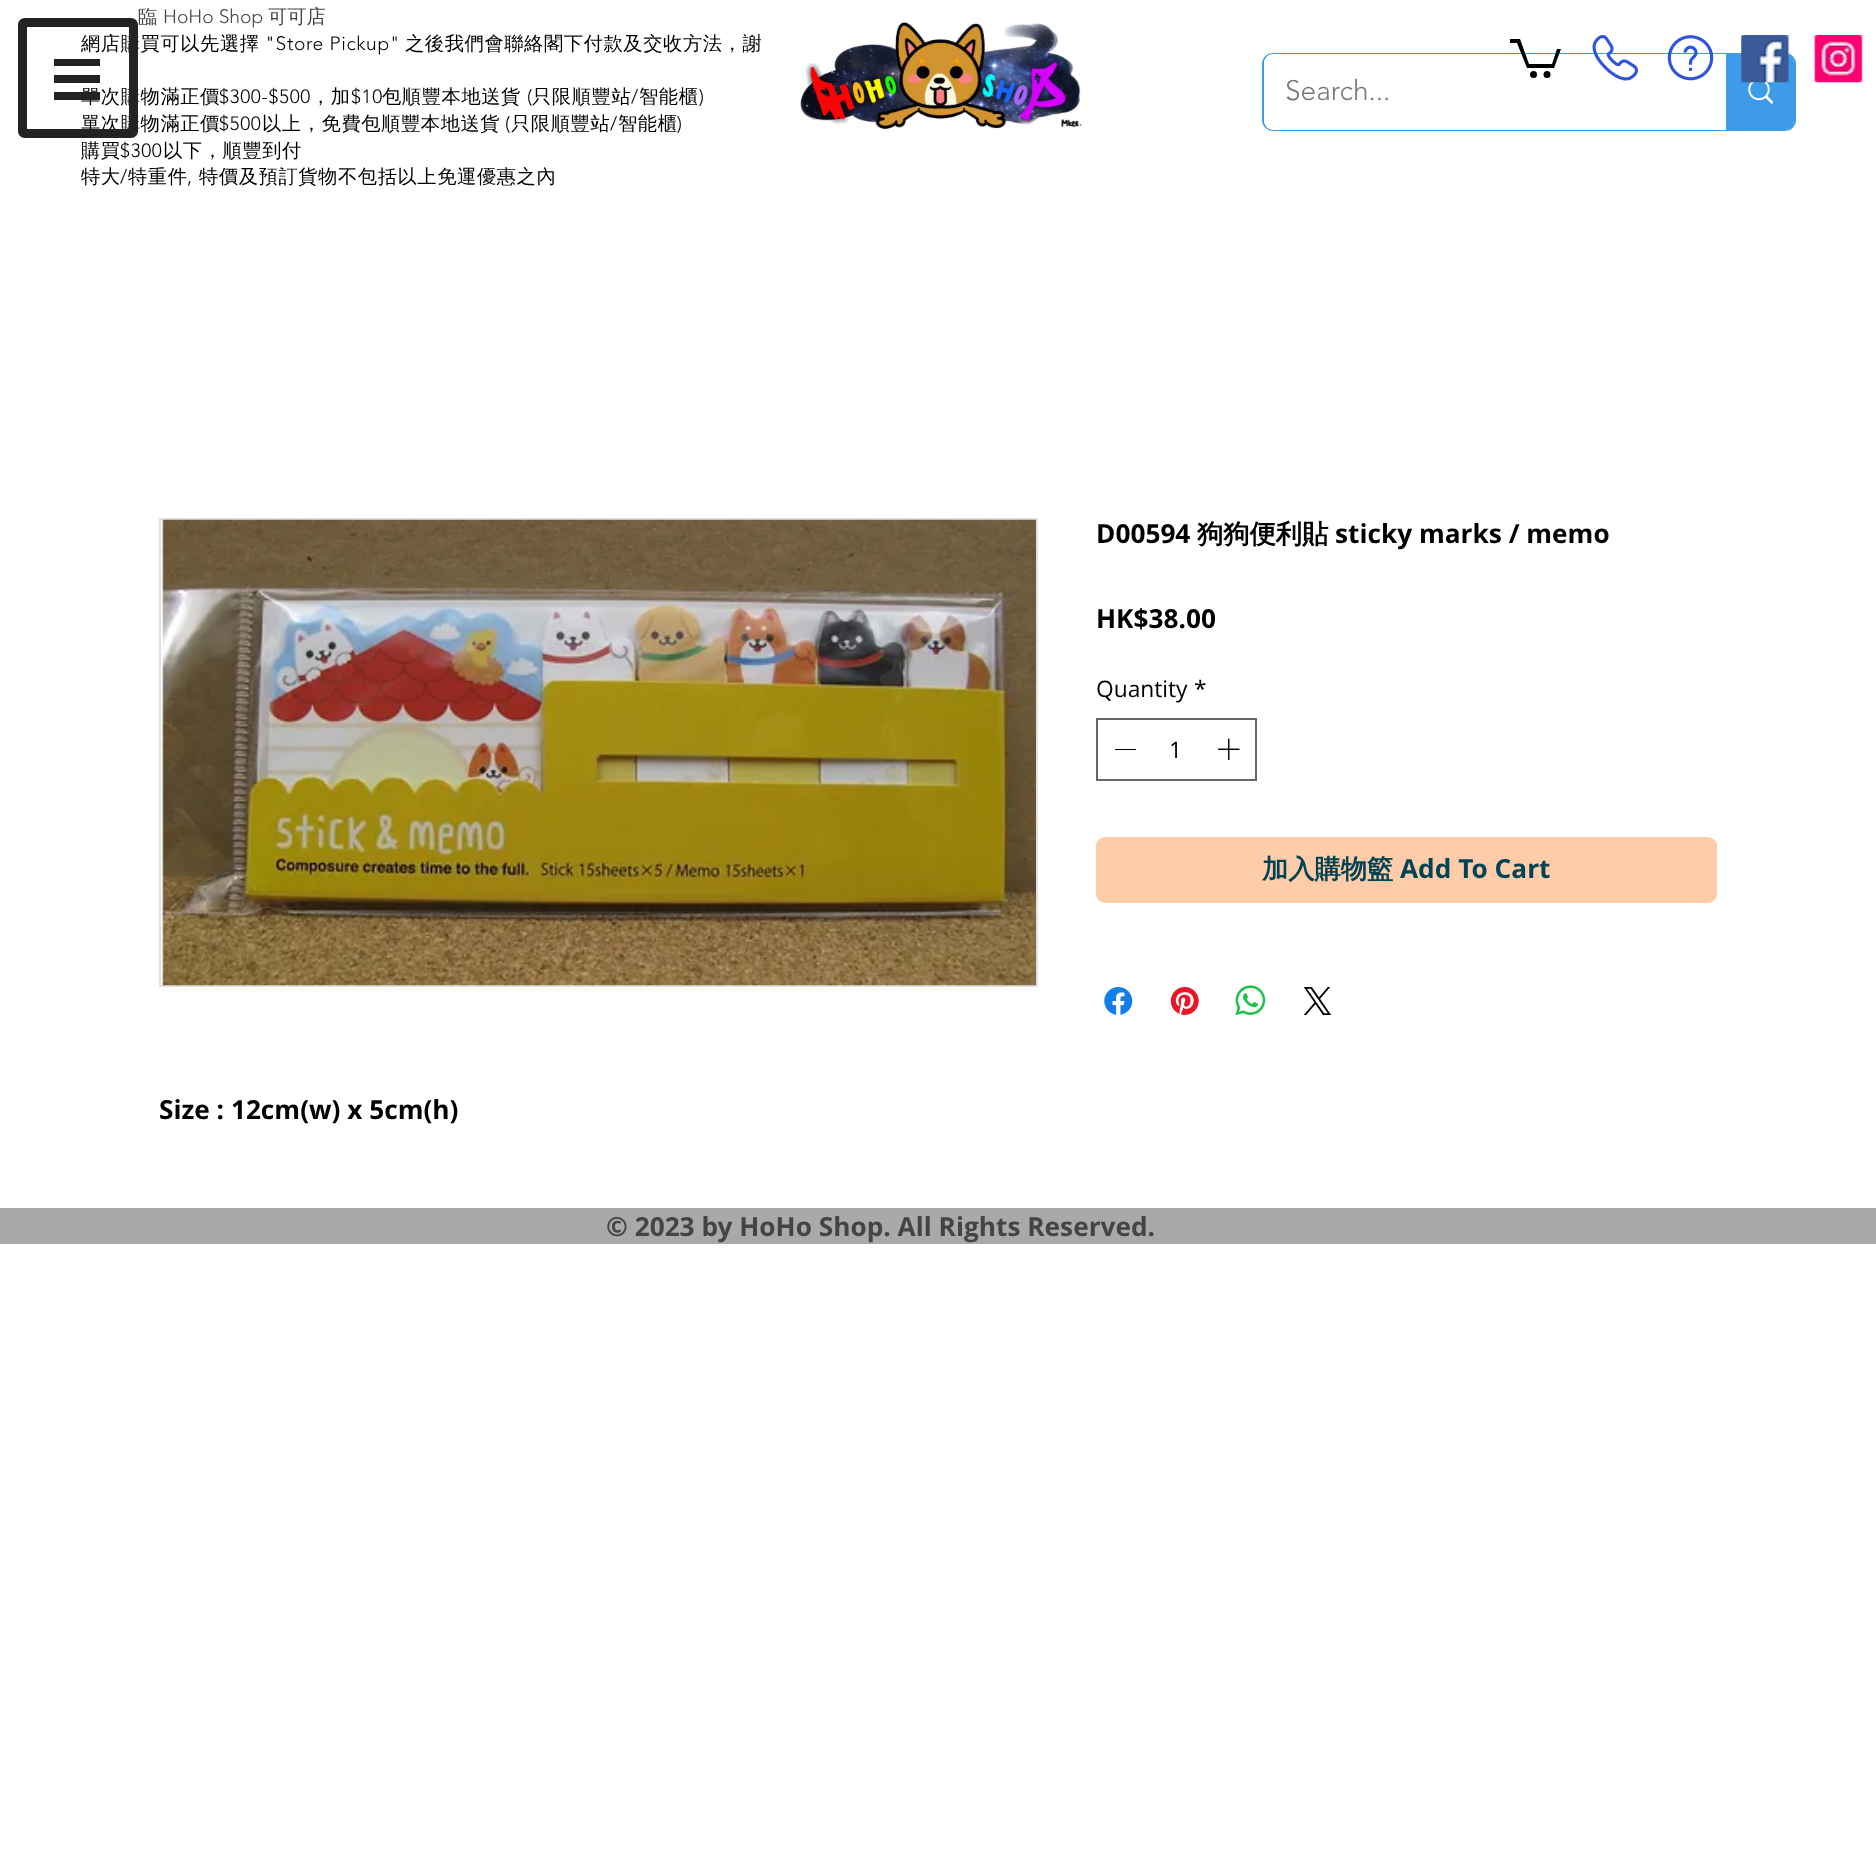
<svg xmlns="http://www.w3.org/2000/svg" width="1876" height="1876">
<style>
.a{font:500 19.25px WenQuanYi Zen Hei;fill:#444}
.b{font:300 19.25px 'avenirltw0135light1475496';fill:#444}
.c{font:500 19.25px WenQuanYi Zen Hei;letter-spacing:0.6px;fill:#000}
.d{font:300 19.25px 'avenirltw0135light1475496';letter-spacing:0.6px;fill:#000}
.e{font:300 28px 'avenirltw0135light1475496';fill:#787878}
.f{font:bold 26.25px Open Sans;fill:#000}
.g{font:bold 26.25px WenQuanYi Zen Hei;fill:#000}
.h{font:22.75px Open Sans;fill:#000}
.i{font:bold 26.25px WenQuanYi Zen Hei;fill:#004354}
.j{font:bold 26.25px Open Sans;fill:#004354}
.k{font:bold 26.25px Open Sans;fill:#444}
</style>
<rect width="100%" height="100%" fill="#fff"/>
<rect fill="none" stroke="#3d9be9" stroke-width="2" x="1263" y="54" width="532" height="76" rx="10"/>
<rect fill="#fff" x="1264" y="54" width="530" height="76" rx="9"/>
<path fill="#3d9be9" d="M1726 54h59c5 0 9 4 9 9v58c0 5-4 9-9 9h-59z"/>
<image href="1.png" x="1748" y="82" width="25" height="22"/>
<image href="2.png" x="797" y="17" width="288" height="113"/>
<path fill="#000" d="M1561 49l-7 19h-27l-10-25h-7v-4h10l9 25h23l5-15"/>
<circle fill="#000" cx="1547" cy="74.5" r="3.5"/>
<circle fill="#000" cx="1533.5" cy="74.5" r="3.5"/>
<image href="3.png" x="1592" y="35" width="46" height="46"/>
<image href="4.png" x="1667" y="35" width="47" height="46"/>
<image href="5.png" x="1741" y="35" width="49" height="48"/>
<image href="6.png" x="1814" y="35" width="49" height="48"/>
<path fill="none" stroke="#666" stroke-width="2" d="M1097 719h159v61H1097z"/>
<path fill="#000" d="M1115 749h21v1H1115z"/>
<image href="7.png" x="1218" y="738" width="22" height="22"/>
<rect fill="#fca" x="1096" y="837" width="621" height="66" rx="9"/>
<image href="8.png" x="1104" y="987" width="29" height="28"/>
<image href="9.png" x="1170" y="987" width="29" height="28"/>
<image href="10.png" x="1235" y="985" width="31" height="31"/>
<image href="11.png" x="1303" y="987" width="28" height="28"/>
<path fill="none" stroke="#e1e1e1" stroke-width="2" d="M160 519h877v467H160z"/>
<image href="12.png" x="162" y="519" width="874" height="467"/>
<path fill="#aaa8a8" d="M0 1208h1876v36H0z"/>
<text class="a" x="138" y="23">臨</text>
<text class="b" x="163" y="23">HoHo Shop</text>
<text class="a" x="268" y="23">可可店</text>
<text class="c" x="81" y="50">網店購買可以先選擇</text>
<text class="d" x="265" y="50">"Store Pickup"</text>
<text class="c" x="405" y="50">之後我們會聯絡閣下付款及交收方法，謝</text>
<text class="c" x="81" y="103">單次購物滿正價</text>
<text class="d" x="219" y="103">$300-$500</text>
<text class="c" x="311" y="103">，加</text>
<text class="d" x="351" y="103">$10</text>
<text class="c" x="382" y="103">包順豐本地送貨</text>
<text class="d" x="527" y="103">(</text>
<text class="c" x="532" y="103">只限順豐站</text>
<text class="d" x="631" y="103">/</text>
<text class="c" x="639" y="103">智能櫃</text>
<text class="d" x="699" y="103">)</text>
<text class="c" x="81" y="130">單次購物滿正價</text>
<text class="d" x="219" y="130">$500</text>
<text class="c" x="262" y="130">以上，免費包順豐本地送貨</text>
<text class="d" x="505" y="130">(</text>
<text class="c" x="511" y="130">只限順豐站</text>
<text class="d" x="610" y="130">/</text>
<text class="c" x="618" y="130">智能櫃</text>
<text class="d" x="677" y="130">)</text>
<text class="c" x="81" y="157">購買</text>
<text class="d" x="120" y="157">$300</text>
<text class="c" x="163" y="157">以下，順豐到付</text>
<text class="c" x="81" y="183">特大</text>
<text class="d" x="120" y="183">/</text>
<text class="c" x="128" y="183">特重件</text>
<text class="d" x="187" y="183">,</text>
<text class="c" x="199" y="183">特價及預訂貨物不包括以上免運優惠之內</text>
<text class="e" x="1285" y="100">Search...</text>
<path fill="#242323" d="M129 27v102h-102v-102h102m2-9h-106c-4 0-7 3-7 7v106c0 4 3 7 7 7h106c4 0 7-3 7-7v-106c0-4-3-7-7-7z"/>
<path fill="#242323" d="M54 92h46v8H54z"/>
<path fill="#242323" d="M54 59h46v7H54z"/>
<path fill="#242323" d="M54 75h46v8H54z"/>
<text class="f" x="1096" y="543">D00594</text>
<text class="g" x="1197" y="543">狗狗便利貼</text>
<text class="f" x="1335" y="543">sticky marks / memo</text>
<text class="f" x="1096" y="628">HK$38.00</text>
<text class="h" x="1096" y="697">Quantity</text>
<text class="h" x="1194" y="697">*</text>
<text class="h" x="1169" y="758">1</text>
<text class="i" x="1262" y="878">加入購物籃</text>
<text class="j" x="1400" y="878">Add To Cart</text>
<text class="f" x="159" y="1119">Size : 12cm(w) x 5cm(h)</text>
<text class="k" x="606" y="1236">© 2023 by HoHo Shop. All Rights Reserved.</text>
</svg>
